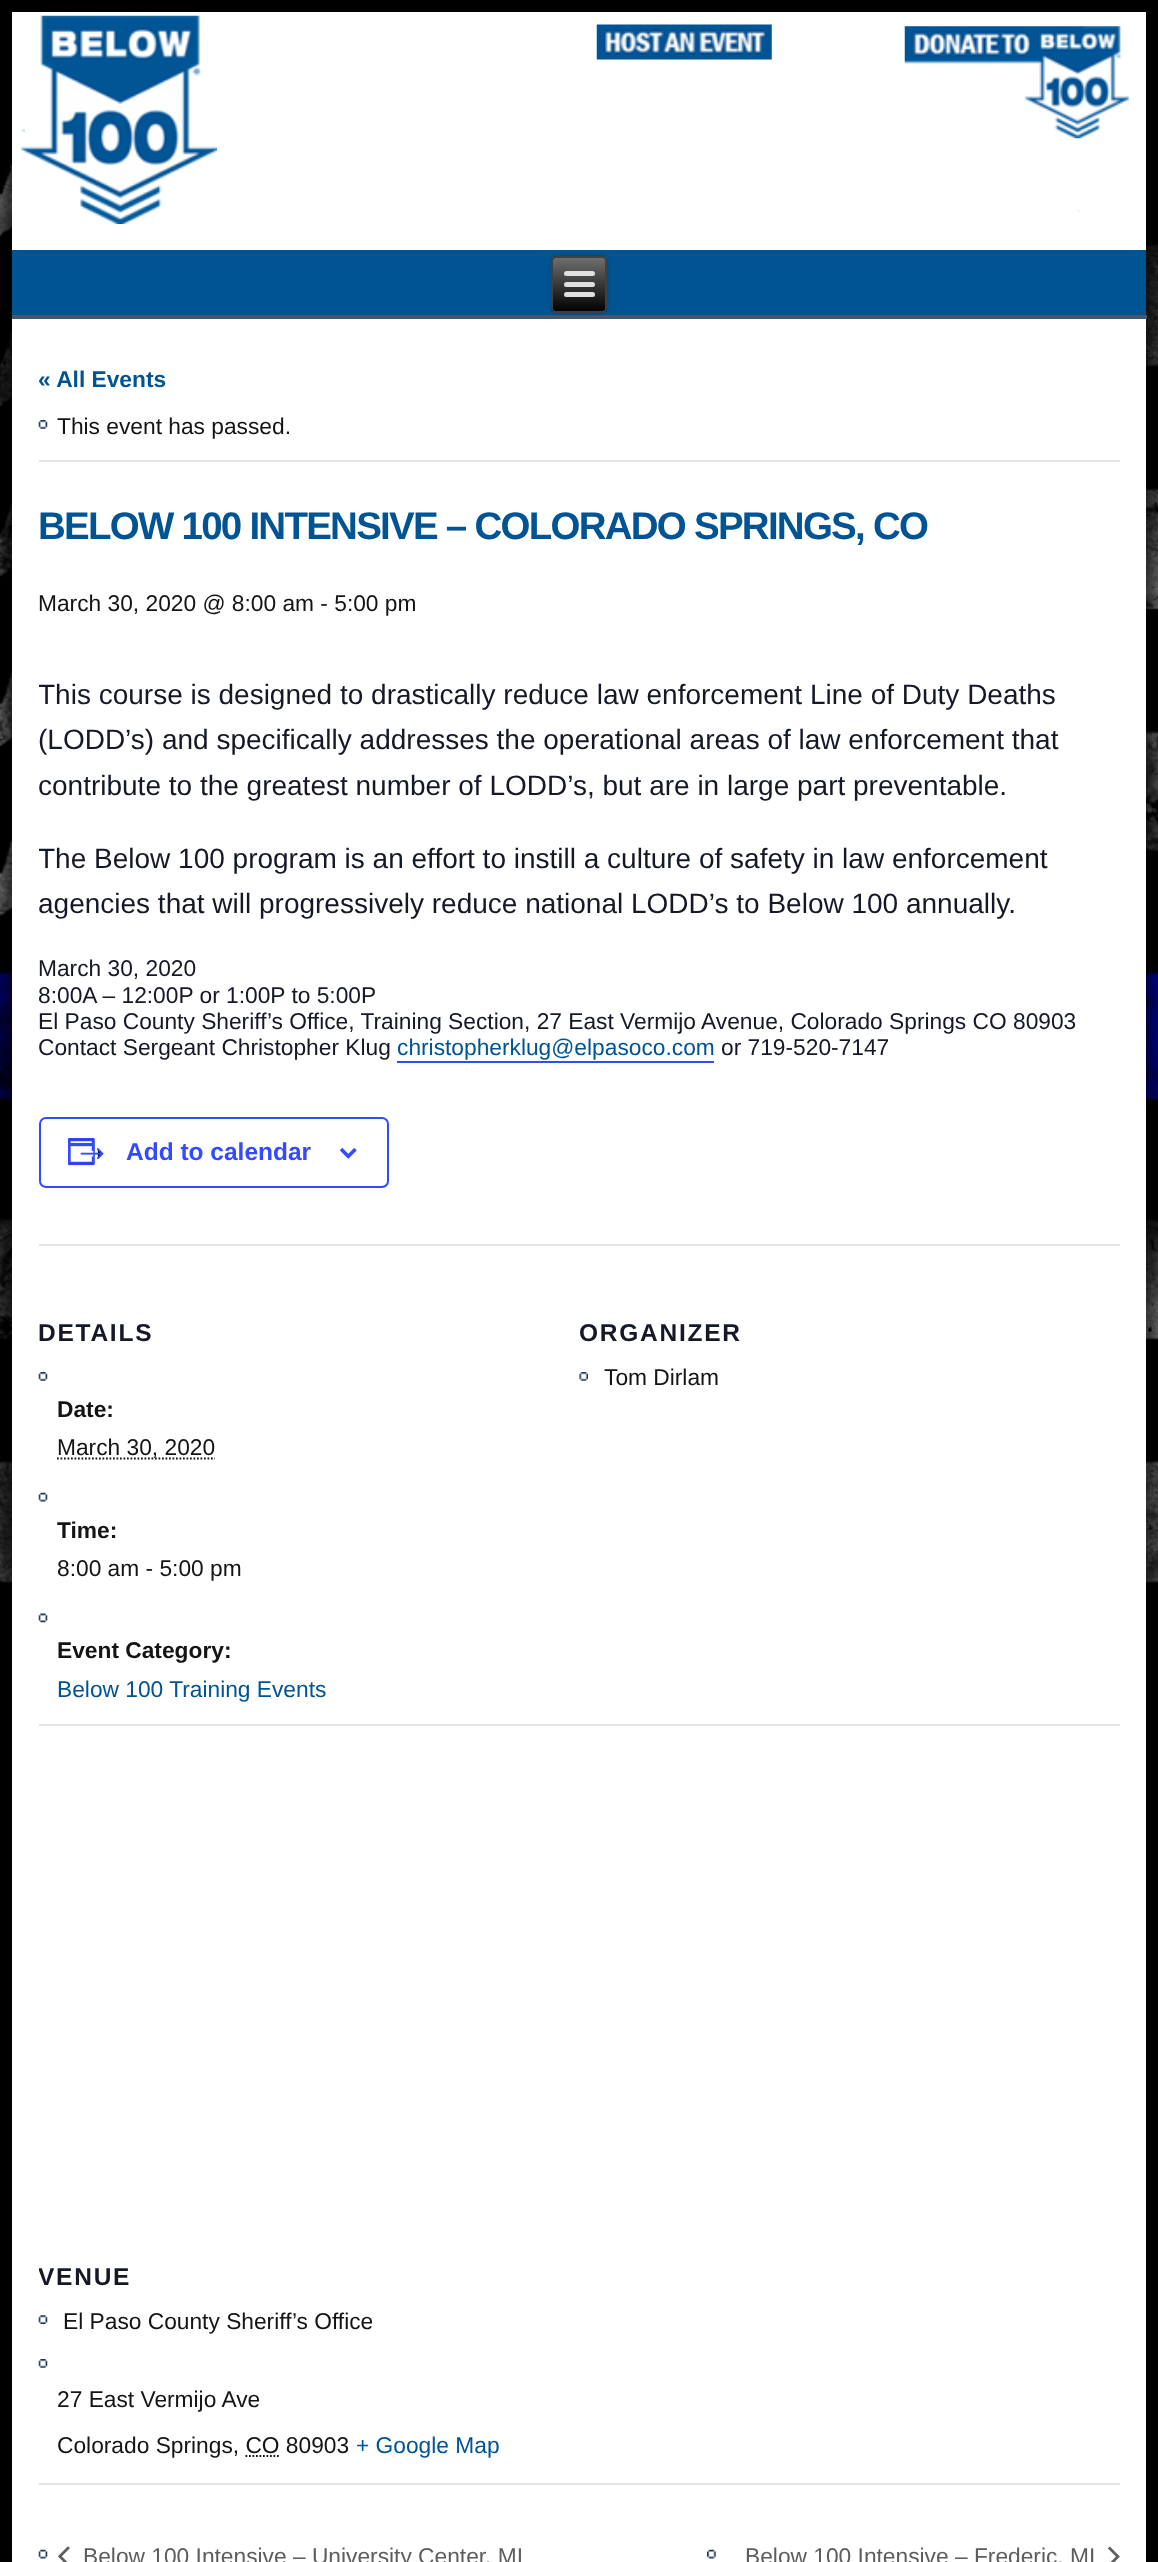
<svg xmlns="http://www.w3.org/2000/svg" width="1158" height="2562">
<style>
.a{font:bold 22.75px Liberation Sans;fill:#005494}
.b{font:22.75px Liberation Sans;fill:#141414}
.c{font:bold 38.5px Liberation Sans;letter-spacing:-1.75px;fill:#005494}
.d{font:28px Liberation Sans;fill:#141827}
.e{font:22.75px Liberation Sans;fill:#141827}
.f{font:22.75px Liberation Sans;fill:#005494}
.g{font:bold 24.5px Liberation Sans;fill:#334aff}
.h{font:bold 24.5px Liberation Sans;letter-spacing:1.75px;fill:#141827}
.i{font:bold 22.75px Liberation Sans;fill:#141414}
.j{font:22.75px Liberation Sans;fill:#5d5d5d}
</style>
<defs>
<clipPath id="clip1"><rect x="551" y="256" width="56" height="57" rx="5"/></clipPath>
<linearGradient id="g1" gradientUnits="userSpaceOnUse" x1="579" y1="257" x2="579" y2="312"><stop offset="0" stop-color="#707070"/><stop offset="1" stop-color="#000"/></linearGradient>
<clipPath id="clip2"><path d="M39 651h1081v1832H39z"/></clipPath>
</defs>
<rect width="100%" height="100%" fill="#000"/>
<image href="1.png" x="0" y="158" width="1158" height="1425"/>
<path fill="#000000bf" filter="blur(12px)" d="M0 0h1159v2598H0z"/>
<path fill="#fff" d="M12 12h1134v2550H12z"/>
<image href="2.png" x="21" y="15" width="196" height="209"/>
<image href="3.png" x="596" y="24" width="176" height="36"/>
<image href="4.png" x="904" y="26" width="225" height="113"/>
<path fill="#d9e6f0" d="M22 129h3v3H22z"/>
<image href="5.png" x="1078" y="210" width="2" height="2"/>
<path fill="#005494" d="M12 250h1134v65H12z"/>
<path fill="#465870" d="M12 315h1135v4H12z"/>
<rect fill="#00000033" filter="blur(2.5px)" x="551" y="256" width="56" height="57" rx="5"/>
<g clip-path="url(#clip1)">
<path fill="url(#g1)" d="M551 257h56v55H551z"/>
</g>
<rect fill="none" stroke="#404040" stroke-width="2" x="552" y="257" width="54" height="55" rx="4"/>
<rect fill="#e0e0e0" x="564" y="271" width="31" height="5" rx="2.5"/>
<rect fill="#e0e0e0" x="564" y="282" width="31" height="5" rx="2.5"/>
<rect fill="#e0e0e0" x="564" y="292" width="31" height="5" rx="2.5"/>
<path fill="#e4e4e4" d="M39 460h1081v2H39z"/>
<image href="6.png" x="38" y="420" width="10" height="9"/>
<path fill="#334aff" d="M397 1061h317v2H397z"/>
<rect fill="none" stroke="#334aff" stroke-width="2" x="40" y="1118" width="348" height="69" rx="6"/>
<image href="7.png" x="68" y="1138" width="36" height="28"/>
<image href="8.png" x="340" y="1148" width="17" height="11"/>
<path fill="#e4e4e4" d="M39 1244h1081v2H39z"/>
<image href="6.png" x="38" y="1372" width="10" height="9"/>
<path fill="none" stroke="#141414" stroke-width="1.8" stroke-dasharray="1.75 1.75" d="M57 1458.5h158"/>
<image href="9.png" x="38" y="1492" width="10" height="10"/>
<image href="10.png" x="38" y="1613" width="10" height="10"/>
<image href="11.png" x="579" y="1372" width="9" height="9"/>
<path fill="#e4e4e4" d="M39 1724h1081v2H39z"/>
<image href="12.png" x="38" y="2315" width="10" height="9"/>
<image href="6.png" x="38" y="2359" width="10" height="9"/>
<path fill="none" stroke="#141414" stroke-width="1.8" stroke-dasharray="1.75 1.75" d="M245.5 2456h34"/>
<path fill="#e4e4e4" d="M39 2483h1081v2H39z"/>
<image href="9.png" x="38" y="2549" width="10" height="10"/>
<image href="13.png" x="58" y="2546" width="12" height="16"/>
<image href="14.png" x="707" y="2549" width="9" height="10"/>
<image href="15.png" x="1108" y="2546" width="12" height="16"/>
<text class="a" x="38" y="387">« All Events</text>
<text class="b" x="57" y="434">This event has passed.</text>
<text class="c" x="38" y="539">BELOW 100 INTENSIVE – COLORADO SPRINGS, CO</text>
<text class="b" x="38" y="611">March 30, 2020 @ 8:00 am - 5:00 pm</text>
<g clip-path="url(#clip2)">
<text class="d" x="38" y="704">This course is designed to drastically reduce law enforcement Line of Duty Deaths</text>
</g>
<text class="d" x="38" y="749">(LODD’s) and specifically addresses the operational areas of law enforcement that</text>
<text class="d" x="38" y="795">contribute to the greatest number of LODD’s, but are in large part preventable.</text>
<g clip-path="url(#clip2)">
<text class="d" x="38" y="868">The Below 100 program is an effort to instill a culture of safety in law enforcement</text>
</g>
<text class="d" x="38" y="913">agencies that will progressively reduce national LODD’s to Below 100 annually.</text>
<text class="e" x="38" y="976">March 30, 2020</text>
<text class="e" x="38" y="1003">8:00A – 12:00P or 1:00P to 5:00P</text>
<text class="e" x="38" y="1029">El Paso County Sheriff’s Office, Training Section, 27 East Vermijo Avenue, Colorado Springs CO 80903</text>
<text class="e" x="38" y="1055">Contact Sergeant Christopher Klug</text>
<text class="f" x="397" y="1055">christopherklug@elpasoco.com</text>
<text class="e" x="721" y="1055">or 719-520-7147</text>
<text class="g" x="126" y="1160">Add to calendar</text>
<text class="h" x="38" y="1341">DETAILS</text>
<text class="i" x="57" y="1417">Date:</text>
<text class="b" x="57" y="1455">March 30, 2020</text>
<text class="i" x="57" y="1538">Time:</text>
<text class="b" x="57" y="1576">8:00 am - 5:00 pm</text>
<text class="i" x="57" y="1658">Event Category:</text>
<text class="f" x="57" y="1697">Below 100 Training Events</text>
<text class="h" x="579" y="1341">ORGANIZER</text>
<text class="b" x="604" y="1385">Tom Dirlam</text>
<g clip-path="url(#clip2)">
<text class="h" x="38" y="2285">VENUE</text>
</g>
<text class="b" x="63" y="2329">El Paso County Sheriff’s Office</text>
<text class="b" x="57" y="2407">27 East Vermijo Ave</text>
<text class="b" x="57" y="2453">Colorado Springs, CO 80903</text>
<text class="f" x="356" y="2453">+ Google Map</text>
<text class="j" x="83" y="2564">Below 100 Intensive – University Center, MI</text>
<text class="j" x="745" y="2564">Below 100 Intensive – Frederic, MI</text>
</svg>
